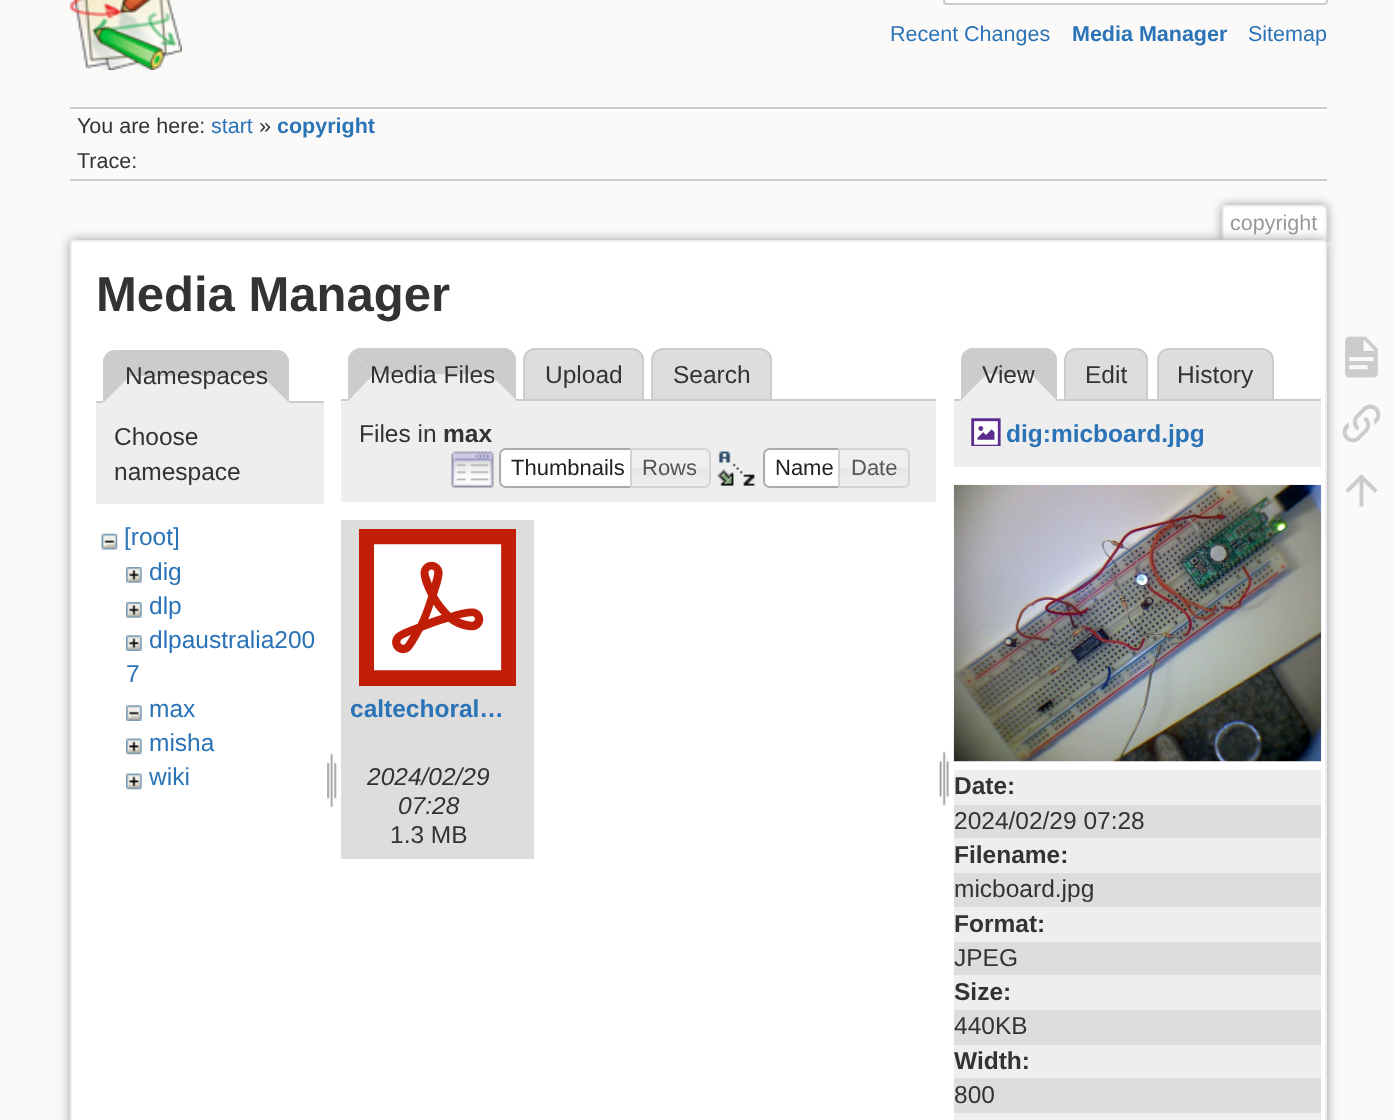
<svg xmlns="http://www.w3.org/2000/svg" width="1395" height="1120">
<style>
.a{font:21.5px Liberation Sans;fill:#2b73b7}
.b{font:bold 21.5px Liberation Sans;fill:#2b73b7}
.c{font:21.5px Liberation Sans;fill:#333}
.d{font:21.5px Liberation Sans;fill:#999}
.e{font:bold 49px Liberation Sans;fill:#333}
.f{font:24.5px Liberation Sans;fill:#333}
.g{font:24.5px Liberation Sans;fill:#2b73b7}
.h{font:bold 24.5px Liberation Sans;fill:#333}
.i{font:22px Liberation Sans;fill:#212121}
.j{font:22px Liberation Sans;fill:#555}
.k{font:bold 24.5px Liberation Sans;fill:#2b73b7}
.l{font:italic 24.5px Liberation Sans;fill:#333}
</style>
<defs>
<clipPath id="clip1"><path d="M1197 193h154v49H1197z"/></clipPath>
</defs>
<rect width="100%" height="100%" fill="#fbfaf9"/>
<image href="1.png" x="70" y="0" width="112" height="70"/>
<rect fill="#fff" stroke="#ccc" stroke-width="2" x="944" y="-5" width="383" height="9" rx="3"/>
<path fill="#ccc" d="M70 107h1257v2H70z"/>
<path fill="#fff" d="M70 181h1257v1H70z"/>
<path fill="#fff" d="M70 109h1257v2H70z"/>
<path fill="#ccc" d="M70 179h1257v2H70z"/>
<g clip-path="url(#clip1)">
<rect fill="#999" filter="blur(5.5px)" x="1222" y="205" width="105" height="37" rx="4"/>
</g>
<path fill="#fff" d="M1225 207h98c1 0 2 1 2 2v33h-102v-33c0-1 1-2 2-2z"/>
<path fill="#eee" d="M1223 205h102v2H1223z"/>
<path fill="#eee" d="M1325 207h2v35H1325z"/>
<path fill="#eee" d="M1222 207h2v35H1222z"/>
<rect fill="#999" filter="blur(6px)" x="70" y="240" width="1257" height="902" rx="4"/>
<rect fill="#fff" stroke="#eee" stroke-width="2" x="71" y="241" width="1255" height="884" rx="3"/>
<path fill="#ccc" d="M96 401h228v2H96z"/>
<path fill="#eee" d="M115 350h162c6.5 0 12 5.5 12 12v41h-186v-41c0-6.5 5.5-12 12-12z"/>
<path fill="#ccc" d="M116 350h160c4 0 7 1 9 3l-23 23h-132l-23-23c2-2 5-3 9-3z"/>
<path fill="#ccc" d="M285 353l-23 23l26 26h1v-42c-1-3-2-5-4-7z"/>
<path fill="#eee" d="M288 402l-26-26h-132l-26 26z"/>
<path fill="#ccc" d="M104 402l26-26l-23-23c-2 2-3 4-4 7v42z"/>
<path fill="#eee" d="M96 403h228v101H96z"/>
<image href="2.png" x="101" y="533" width="17" height="17"/>
<image href="3.png" x="126" y="567" width="16" height="16"/>
<image href="3.png" x="126" y="602" width="16" height="16"/>
<image href="4.png" x="126" y="635" width="16" height="16"/>
<image href="5.png" x="126" y="705" width="16" height="16"/>
<image href="6.png" x="126" y="738" width="16" height="17"/>
<image href="6.png" x="126" y="773" width="16" height="17"/>
<image href="7.png" x="327" y="752" width="10" height="56"/>
<path fill="#ddd" stroke="#ccc" stroke-width="2" d="M535 349h97c6 0 11 5 11 11v40h-119v-40c0-6 5-11 11-11z"/>
<path fill="#ddd" stroke="#ccc" stroke-width="2" d="M663 349h97c6 0 11 5 11 11v40h-119v-40c0-6 5-11 11-11z"/>
<path fill="#ccc" d="M341 399h595v2H341z"/>
<path fill="#eee" d="M360 348h144c6.5 0 12 5.5 12 12v41h-168v-41c0-6.5 5.5-12 12-12z"/>
<path fill="#ccc" d="M506 348h-148c-2 1-5 2-6 4l22 22h116l23-22c-2-2-4-3-7-4z"/>
<path fill="#ccc" d="M513 352l-23 22l26 26v-40c0-3-1-6-3-8z"/>
<path fill="#eee" d="M516 400l-26-26h-116l-26 27z"/>
<path fill="#ccc" d="M348 401l26-27l-22-22c-2 1-3 4-4 6z"/>
<path fill="#eee" d="M341 401h595v101H341z"/>
<image href="8.png" x="451" y="451" width="43" height="37"/>
<path fill="#fff" d="M506 448h133v40h-133c-4 0-7-3-7-7v-26c0-4 3-7 7-7z"/>
<image href="9.png" x="499" y="448" width="5" height="40"/>
<path fill="none" stroke="#aaa" stroke-width="2" d="M506 449h132v38h-132c-3.5 0-6-2.5-6-6v-26c0-3.5 2.5-6 6-6z"/>
<image href="10.png" x="632" y="448" width="78" height="40"/>
<path fill="none" stroke="#d3d3d3" stroke-width="2" d="M631 449h73c3.5 0 6 2.5 6 6v26c0 3.5-2.5 6-6 6h-73z"/>
<image href="11.png" x="717" y="451" width="38" height="35"/>
<path fill="#fff" d="M770 448h77v40h-77c-4 0-7-3-7-7v-26c0-4 3-7 7-7z"/>
<image href="12.png" x="763" y="448" width="5" height="40"/>
<path fill="none" stroke="#aaa" stroke-width="2" d="M770 449h76v38h-76c-3.5 0-6-2.5-6-6v-26c0-3.5 2.5-6 6-6z"/>
<image href="13.png" x="840" y="448" width="70" height="40"/>
<path fill="none" stroke="#d3d3d3" stroke-width="2" d="M839 449h64c3.5 0 6 2.5 6 6v26c0 3.5-2.5 6-6 6h-64z"/>
<path fill="#ddd" d="M341 520h193v339H341z"/>
<image href="14.png" x="359" y="529" width="157" height="157"/>
<image href="15.png" x="939" y="751" width="10" height="55"/>
<path fill="#ddd" stroke="#ccc" stroke-width="2" d="M1076 349h60c6 0 11 5 11 11v40h-82v-40c0-6 5-11 11-11z"/>
<path fill="#ddd" stroke="#ccc" stroke-width="2" d="M1169 349h93c6 0 11 5 11 11v40h-115v-40c0-6 5-11 11-11z"/>
<path fill="#ccc" d="M954 399h367v2H954z"/>
<path fill="#eee" d="M973 348h72c6.5 0 12 5.5 12 12v41h-96v-41c0-6.5 5.5-12 12-12z"/>
<path fill="#ccc" d="M1047 348h-76c-3 1-5 2-7 4l23 22h44l23-22c-2-2-4-3-7-4z"/>
<path fill="#ccc" d="M1054 352l-23 22l26 27v-41c0-3-1-6-3-8z"/>
<path fill="#eee" d="M1057 401l-26-27h-44l-26 26z"/>
<path fill="#ccc" d="M961 400l26-26l-23-22c-2 2-3 5-3 8z"/>
<path fill="#eee" d="M954 401h367v66H954z"/>
<image href="16.png" x="971" y="418" width="30" height="28"/>
<image href="17.png" x="953" y="484" width="369" height="278"/>
<path fill="#eee" d="M954 770h367v35H954z"/>
<path fill="#ddd" d="M954 805h367v33H954z"/>
<path fill="#eee" d="M954 838h367v35H954z"/>
<path fill="#ddd" d="M954 873h367v34H954z"/>
<path fill="#eee" d="M954 907h367v35H954z"/>
<path fill="#ddd" d="M954 942h367v33H954z"/>
<path fill="#eee" d="M954 975h367v35H954z"/>
<path fill="#ddd" d="M954 1010h367v35H954z"/>
<path fill="#eee" d="M954 1045h367v33H954z"/>
<path fill="#ddd" d="M954 1078h367v35H954z"/>
<path fill="#eee" d="M954 1113h367v7H954z"/>
<image href="18.png" x="1345" y="336" width="33" height="42"/>
<image href="19.png" x="1342" y="404" width="39" height="39"/>
<path fill="#ccc" d="M1363.5 506.5h-4v-24.5l-11.5 11l-2.5-3l16-16l16 16l-2.5 3l-11.5-11z"/>
<text class="a" x="890" y="41">Recent Changes</text>
<text class="b" x="1072" y="41">Media Manager</text>
<text class="a" x="1248" y="41">Sitemap</text>
<text class="c" x="77" y="133">You are here:</text>
<text class="a" x="211" y="133">start</text>
<text class="c" x="259" y="133">»</text>
<text class="b" x="277" y="133">copyright</text>
<text class="c" x="77" y="168">Trace:</text>
<text class="d" x="1230" y="230">copyright</text>
<text class="e" x="96" y="311">Media Manager</text>
<text class="f" x="125" y="384">Namespaces</text>
<text class="f" x="114" y="445">Choose</text>
<text class="f" x="114" y="480">namespace</text>
<text class="g" x="124" y="545">[root]</text>
<text class="g" x="149" y="580">dig</text>
<text class="g" x="149" y="614">dlp</text>
<text class="g" x="149" y="648">dlpaustralia200</text>
<text class="g" x="126" y="682">7</text>
<text class="g" x="149" y="717">max</text>
<text class="g" x="149" y="751">misha</text>
<text class="g" x="149" y="785">wiki</text>
<text class="f" x="370" y="383">Media Files</text>
<text class="f" x="545" y="383">Upload</text>
<text class="f" x="673" y="383">Search</text>
<text class="f" x="359" y="442">Files in</text>
<text class="h" x="443" y="442">max</text>
<text class="i" x="511" y="475">Thumbnails</text>
<text class="j" x="642" y="475">Rows</text>
<text class="i" x="775" y="475">Name</text>
<text class="j" x="851" y="475">Date</text>
<text class="k" x="350" y="717">caltechoral…</text>
<text class="l" x="367" y="785">2024/02/29</text>
<text class="l" x="398" y="814">07:28</text>
<text class="f" x="390" y="843">1.3 MB</text>
<text class="f" x="982" y="383">View</text>
<text class="f" x="1085" y="383">Edit</text>
<text class="f" x="1177" y="383">History</text>
<text class="k" x="1006" y="442">dig:micboard.jpg</text>
<text class="h" x="954" y="794">Date:</text>
<text class="f" x="954" y="829">2024/02/29 07:28</text>
<text class="h" x="954" y="863">Filename:</text>
<text class="f" x="954" y="897">micboard.jpg</text>
<text class="h" x="954" y="932">Format:</text>
<text class="f" x="954" y="966">JPEG</text>
<text class="h" x="954" y="1000">Size:</text>
<text class="f" x="954" y="1034">440KB</text>
<text class="h" x="954" y="1069">Width:</text>
<text class="f" x="954" y="1103">800</text>
</svg>
